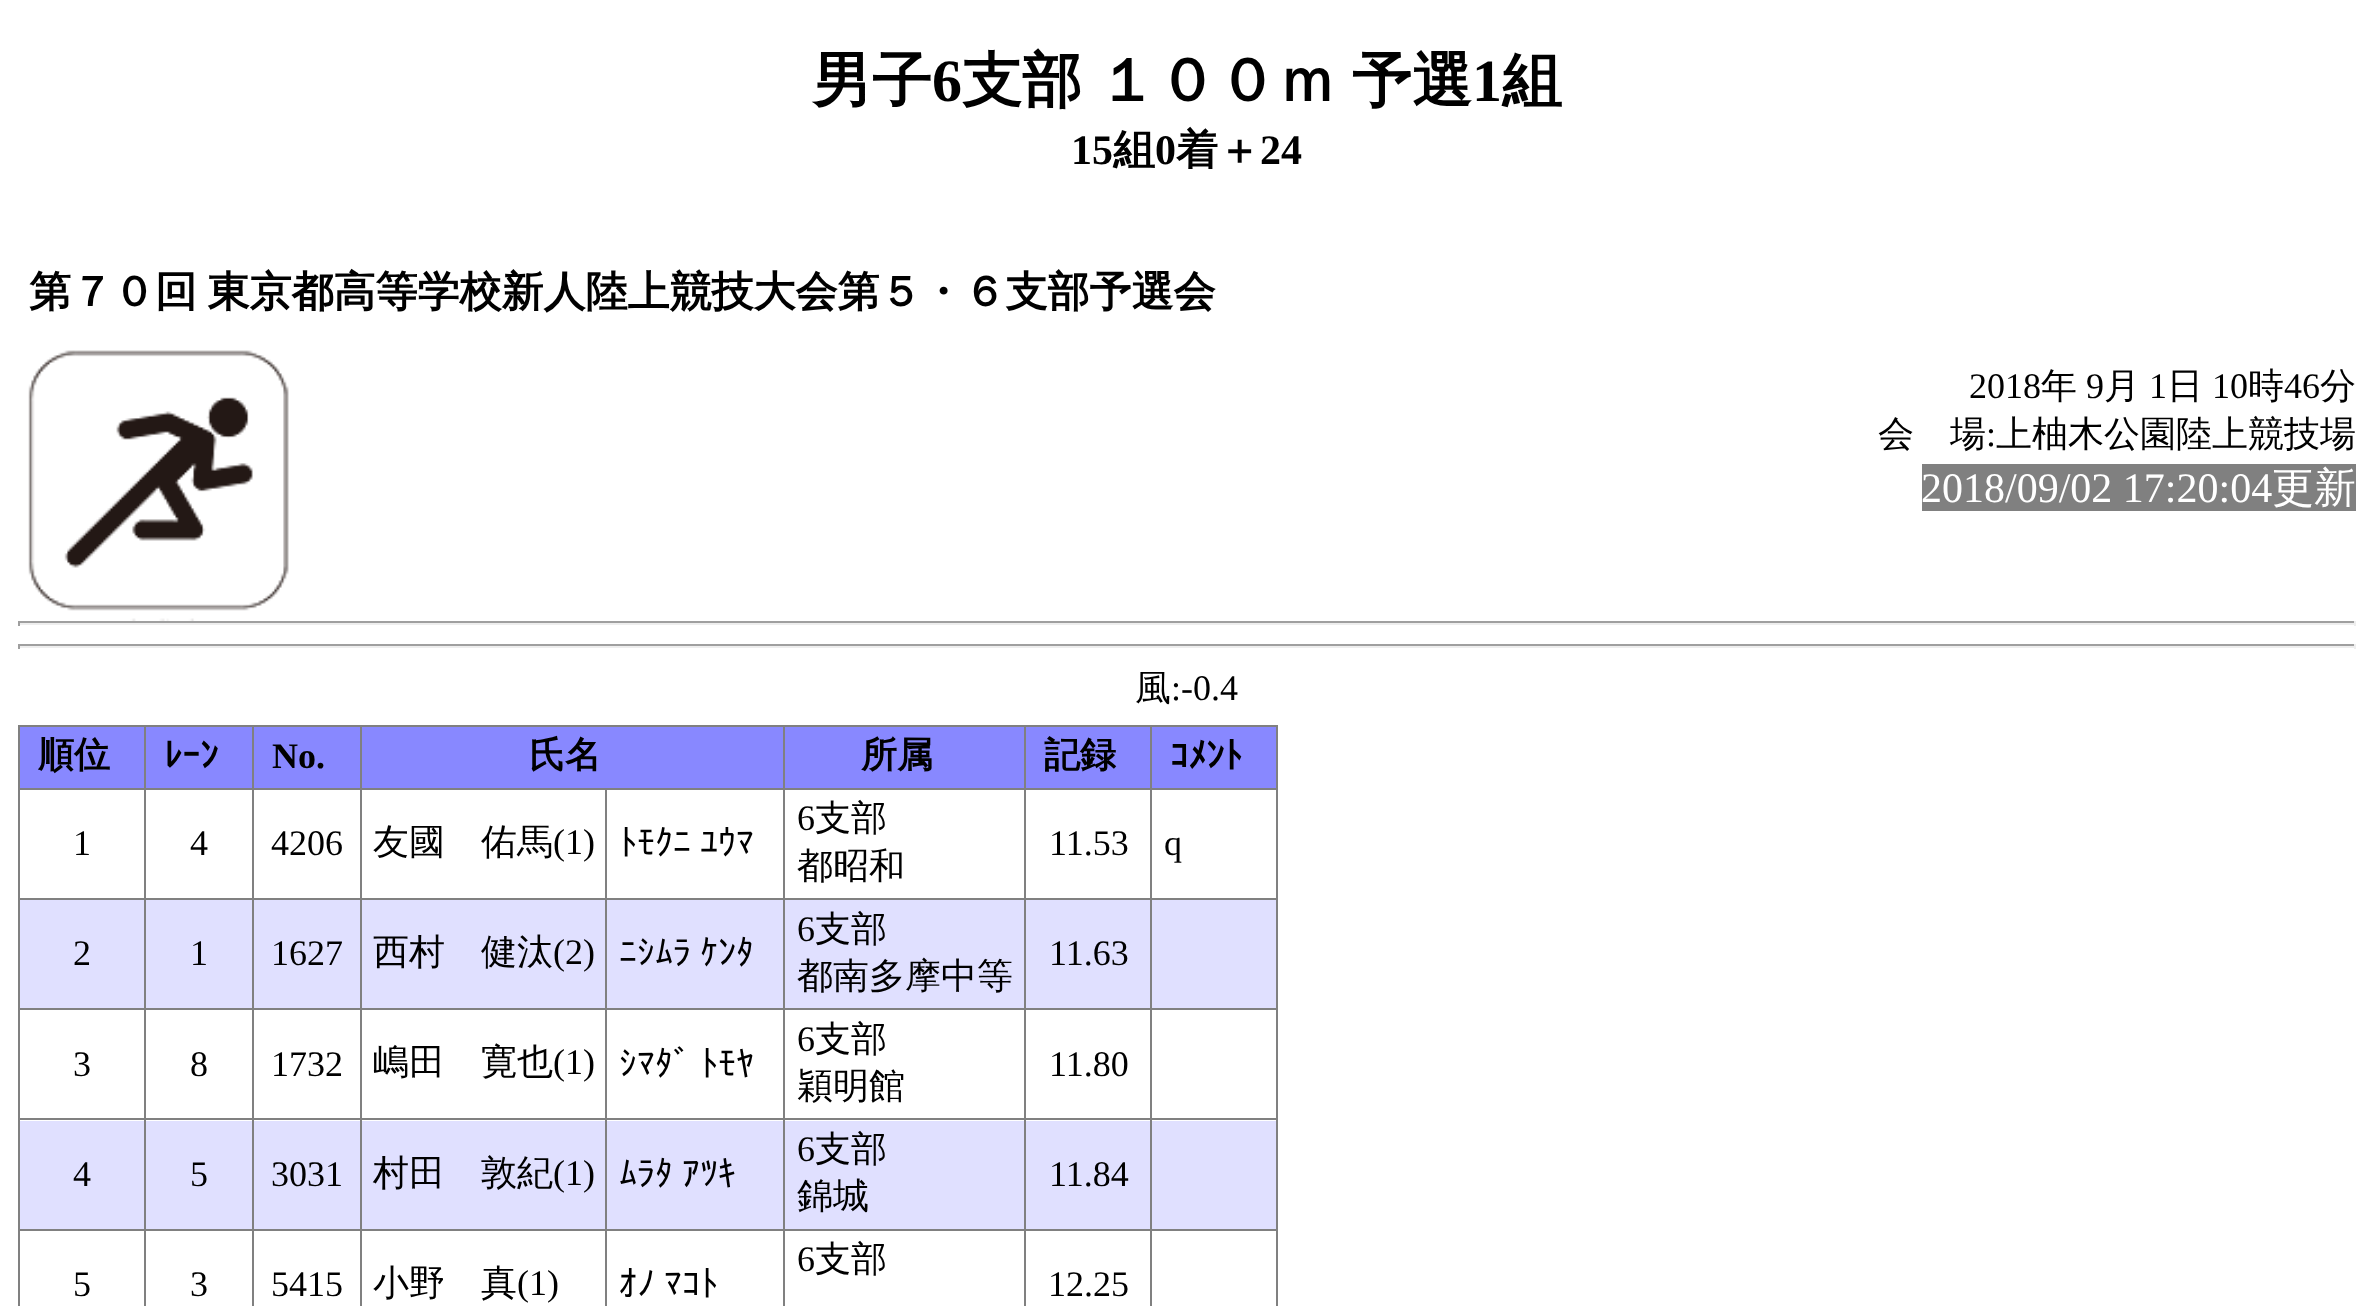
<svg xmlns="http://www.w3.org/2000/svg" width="2372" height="1306">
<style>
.a{font:bold 60px WenQuanYi Zen Hei;fill:#000}
.b{font:bold 60px Liberation Serif;fill:#000}
.c{font:bold 42px Liberation Serif;fill:#000}
.d{font:bold 42px WenQuanYi Zen Hei;fill:#000}
.e{font:36px Liberation Serif;fill:#000}
.f{font:500 36px WenQuanYi Zen Hei;fill:#000}
.g{font:42px Liberation Serif;fill:#fff}
.h{font:500 42px WenQuanYi Zen Hei;fill:#fff}
.i{font:bold 36px WenQuanYi Zen Hei;fill:#000}
.j{font:bold 36px IPAGothic;fill:#000}
.k{font:bold 36px Liberation Serif;fill:#000}
.l{font:36px IPAGothic;fill:#000}
</style>
<rect width="100%" height="100%" fill="#fff"/>
<image href="1.png" x="28" y="350" width="261" height="271"/>
<path fill="#808080" d="M1922 464h434v47H1922z"/>
<path fill="#9f9f9f" d="M18 621h2338v2H18z"/>
<path fill="#eee" d="M2354 621h2v5H2354z"/>
<path fill="#eee" d="M18 623h2338v2H18z"/>
<path fill="#9f9f9f" d="M18 621h2v5H18z"/>
<path fill="#9f9f9f" d="M18 644h2338v2H18z"/>
<path fill="#eee" d="M2354 644h2v5H2354z"/>
<path fill="#eee" d="M18 646h2338v2H18z"/>
<path fill="#9f9f9f" d="M18 644h2v5H18z"/>
<path fill="#808080" d="M18 725h1260v2H18z"/>
<path fill="#808080" d="M18 725h2v581H18z"/>
<path fill="#88f" d="M20 727h124v61H20z"/>
<path fill="#e0e0ff" d="M20 900h1256v108H20z"/>
<path fill="#e0e0ff" d="M20 1121h1256v108H20z"/>
<path fill="#808080" d="M1276 725h2v581H1276z"/>
<path fill="#808080" d="M1150 1229h2v77H1150z"/>
<path fill="#808080" d="M1150 1229h128v2H1150z"/>
<path fill="#808080" d="M1150 1118h2v113H1150z"/>
<path fill="#808080" d="M1150 1118h128v2H1150z"/>
<path fill="#808080" d="M1150 1008h2v113H1150z"/>
<path fill="#808080" d="M1150 1008h128v2H1150z"/>
<path fill="#808080" d="M1150 898h2v112H1150z"/>
<path fill="#808080" d="M1150 898h128v2H1150z"/>
<path fill="#808080" d="M1150 788h2v112H1150z"/>
<path fill="#808080" d="M1150 788h128v2H1150z"/>
<path fill="#808080" d="M1150 725h2v65H1150z"/>
<path fill="#808080" d="M1024 1229h2v77H1024z"/>
<path fill="#808080" d="M1024 1229h128v2H1024z"/>
<path fill="#808080" d="M1024 1118h2v113H1024z"/>
<path fill="#808080" d="M1024 1118h128v2H1024z"/>
<path fill="#808080" d="M1024 1008h2v113H1024z"/>
<path fill="#808080" d="M1024 1008h128v2H1024z"/>
<path fill="#808080" d="M1024 898h2v112H1024z"/>
<path fill="#808080" d="M1024 898h128v2H1024z"/>
<path fill="#808080" d="M1024 788h2v112H1024z"/>
<path fill="#808080" d="M1024 788h128v2H1024z"/>
<path fill="#808080" d="M1024 725h2v65H1024z"/>
<path fill="#808080" d="M783 1229h2v77H783z"/>
<path fill="#808080" d="M783 1229h243v2H783z"/>
<path fill="#808080" d="M783 1118h2v113H783z"/>
<path fill="#808080" d="M783 1118h243v2H783z"/>
<path fill="#808080" d="M783 1008h2v113H783z"/>
<path fill="#808080" d="M783 1008h243v2H783z"/>
<path fill="#808080" d="M783 898h2v112H783z"/>
<path fill="#808080" d="M783 898h243v2H783z"/>
<path fill="#808080" d="M783 788h2v112H783z"/>
<path fill="#808080" d="M783 788h243v2H783z"/>
<path fill="#808080" d="M783 725h2v65H783z"/>
<path fill="#808080" d="M605 1229h2v77H605z"/>
<path fill="#808080" d="M605 1229h180v2H605z"/>
<path fill="#808080" d="M605 1118h2v113H605z"/>
<path fill="#808080" d="M605 1118h180v2H605z"/>
<path fill="#808080" d="M605 1008h2v113H605z"/>
<path fill="#808080" d="M605 1008h180v2H605z"/>
<path fill="#808080" d="M605 898h2v112H605z"/>
<path fill="#808080" d="M605 898h180v2H605z"/>
<path fill="#808080" d="M605 788h2v112H605z"/>
<path fill="#808080" d="M360 1229h2v77H360z"/>
<path fill="#808080" d="M360 1229h248v2H360z"/>
<path fill="#808080" d="M360 1118h2v113H360z"/>
<path fill="#808080" d="M360 1118h248v2H360z"/>
<path fill="#808080" d="M360 1008h2v113H360z"/>
<path fill="#808080" d="M360 1008h248v2H360z"/>
<path fill="#808080" d="M360 898h2v112H360z"/>
<path fill="#808080" d="M360 898h248v2H360z"/>
<path fill="#808080" d="M360 788h2v112H360z"/>
<path fill="#808080" d="M360 788h425v2H360z"/>
<path fill="#808080" d="M360 725h2v65H360z"/>
<path fill="#808080" d="M252 1229h2v77H252z"/>
<path fill="#808080" d="M252 1229h110v2H252z"/>
<path fill="#808080" d="M252 1118h2v113H252z"/>
<path fill="#808080" d="M252 1118h110v2H252z"/>
<path fill="#808080" d="M252 1008h2v113H252z"/>
<path fill="#808080" d="M252 1008h110v2H252z"/>
<path fill="#808080" d="M252 898h2v112H252z"/>
<path fill="#808080" d="M252 898h110v2H252z"/>
<path fill="#808080" d="M252 788h2v112H252z"/>
<path fill="#808080" d="M252 788h110v2H252z"/>
<path fill="#808080" d="M252 725h2v65H252z"/>
<path fill="#808080" d="M144 1229h2v77H144z"/>
<path fill="#808080" d="M144 1229h110v2H144z"/>
<path fill="#808080" d="M144 1118h2v113H144z"/>
<path fill="#808080" d="M144 1118h110v2H144z"/>
<path fill="#808080" d="M144 1008h2v113H144z"/>
<path fill="#808080" d="M144 1008h110v2H144z"/>
<path fill="#808080" d="M144 898h2v112H144z"/>
<path fill="#808080" d="M144 898h110v2H144z"/>
<path fill="#808080" d="M144 788h2v112H144z"/>
<path fill="#808080" d="M144 788h110v2H144z"/>
<path fill="#808080" d="M144 725h2v65H144z"/>
<path fill="#808080" d="M18 788h128v2H18z"/>
<path fill="#88f" d="M146 727h106v61H146z"/>
<path fill="#88f" d="M254 727h106v61H254z"/>
<path fill="#88f" d="M362 727h421v61H362z"/>
<path fill="#88f" d="M785 727h239v61H785z"/>
<path fill="#88f" d="M1026 727h124v61H1026z"/>
<path fill="#88f" d="M1152 727h124v61H1152z"/>
<path fill="#808080" d="M18 898h128v2H18z"/>
<path fill="#808080" d="M18 1008h128v2H18z"/>
<path fill="#808080" d="M18 1118h128v2H18z"/>
<path fill="#808080" d="M18 1229h128v2H18z"/>
<text class="a" x="812" y="101">男子</text>
<text class="b" x="932" y="101">6</text>
<text class="a" x="962" y="101" word-spacing="-3">支部 １００ｍ 予選</text>
<text class="b" x="1472" y="101">1</text>
<text class="a" x="1502" y="101">組</text>
<text class="c" x="1071" y="164">15</text>
<text class="d" x="1113" y="164">組</text>
<text class="c" x="1155" y="164">0</text>
<text class="d" x="1176" y="164">着＋</text>
<text class="c" x="1260" y="164">24</text>
<text class="d" x="29" y="306" word-spacing="-2">第７０回 東京都高等学校新人陸上競技大会第５・６支部予選会</text>
<text class="e" x="1969" y="398">2018</text>
<text class="f" x="2041" y="398">年</text>
<text class="e" x="2086" y="398">9</text>
<text class="f" x="2104" y="398">月</text>
<text class="e" x="2149" y="398">1</text>
<text class="f" x="2167" y="398">日</text>
<text class="e" x="2212" y="398">10</text>
<text class="f" x="2248" y="398">時</text>
<text class="e" x="2284" y="398">46</text>
<text class="f" x="2320" y="398">分</text>
<text class="f" x="1878" y="446">会　場</text>
<text class="e" x="1986" y="446">:</text>
<text class="f" x="1996" y="446">上柚木公園陸上競技場</text>
<text class="g" x="1921" y="502">2018/09/02 17:20:04</text>
<text class="h" x="2272" y="502">更新</text>
<text class="f" x="1135" y="700">風</text>
<text class="e" x="1171" y="700">:-0.4</text>
<text class="i" x="38" y="767">順位</text>
<text class="j" x="164" y="768">ﾚｰﾝ</text>
<text class="k" x="272" y="768">No.</text>
<text class="i" x="529" y="767">氏名</text>
<text class="i" x="861" y="767">所属</text>
<text class="i" x="1044" y="767">記録</text>
<text class="j" x="1170" y="768">ｺﾒﾝﾄ</text>
<text class="e" x="73" y="855">1</text>
<text class="e" x="190" y="855">4</text>
<text class="e" x="271" y="855">4206</text>
<text class="f" x="373" y="854">友國　佑馬</text>
<text class="e" x="553" y="854">(1)</text>
<text class="l" x="619" y="855" word-spacing="-9">ﾄﾓｸﾆ ﾕｳﾏ</text>
<text class="e" x="797" y="830">6</text>
<text class="f" x="815" y="830">支部</text>
<text class="f" x="797" y="878">都昭和</text>
<text class="e" x="1049" y="855">11.53</text>
<text class="e" x="1164" y="855">q</text>
<text class="e" x="73" y="965">2</text>
<text class="e" x="190" y="965">1</text>
<text class="e" x="271" y="965">1627</text>
<text class="f" x="373" y="964">西村　健汰</text>
<text class="e" x="553" y="964">(2)</text>
<text class="l" x="619" y="965" word-spacing="-9">ﾆｼﾑﾗ ｹﾝﾀ</text>
<text class="e" x="797" y="941">6</text>
<text class="f" x="815" y="941">支部</text>
<text class="f" x="797" y="988">都南多摩中等</text>
<text class="e" x="1049" y="965">11.63</text>
<text class="e" x="73" y="1076">3</text>
<text class="e" x="190" y="1076">8</text>
<text class="e" x="271" y="1076">1732</text>
<text class="f" x="373" y="1074">嶋田　寛也</text>
<text class="e" x="553" y="1074">(1)</text>
<text class="l" x="619" y="1076" word-spacing="-9">ｼﾏﾀﾞ ﾄﾓﾔ</text>
<text class="e" x="797" y="1051">6</text>
<text class="f" x="815" y="1051">支部</text>
<text class="f" x="797" y="1098">穎明館</text>
<text class="e" x="1049" y="1076">11.80</text>
<text class="e" x="73" y="1186">4</text>
<text class="e" x="190" y="1186">5</text>
<text class="e" x="271" y="1186">3031</text>
<text class="f" x="373" y="1185">村田　敦紀</text>
<text class="e" x="553" y="1185">(1)</text>
<text class="l" x="619" y="1186" word-spacing="-9">ﾑﾗﾀ ｱﾂｷ</text>
<text class="e" x="797" y="1161">6</text>
<text class="f" x="815" y="1161">支部</text>
<text class="f" x="797" y="1208">錦城</text>
<text class="e" x="1049" y="1186">11.84</text>
<text class="e" x="797" y="1271">6</text>
<text class="f" x="815" y="1271">支部</text>
<text class="e" x="73" y="1296">5</text>
<text class="e" x="190" y="1296">3</text>
<text class="e" x="271" y="1296">5415</text>
<text class="f" x="373" y="1295">小野　真</text>
<text class="e" x="517" y="1295">(1)</text>
<text class="l" x="619" y="1296" word-spacing="-9">ｵﾉ ﾏｺﾄ</text>
<text class="e" x="1048" y="1296">12.25</text>
</svg>
